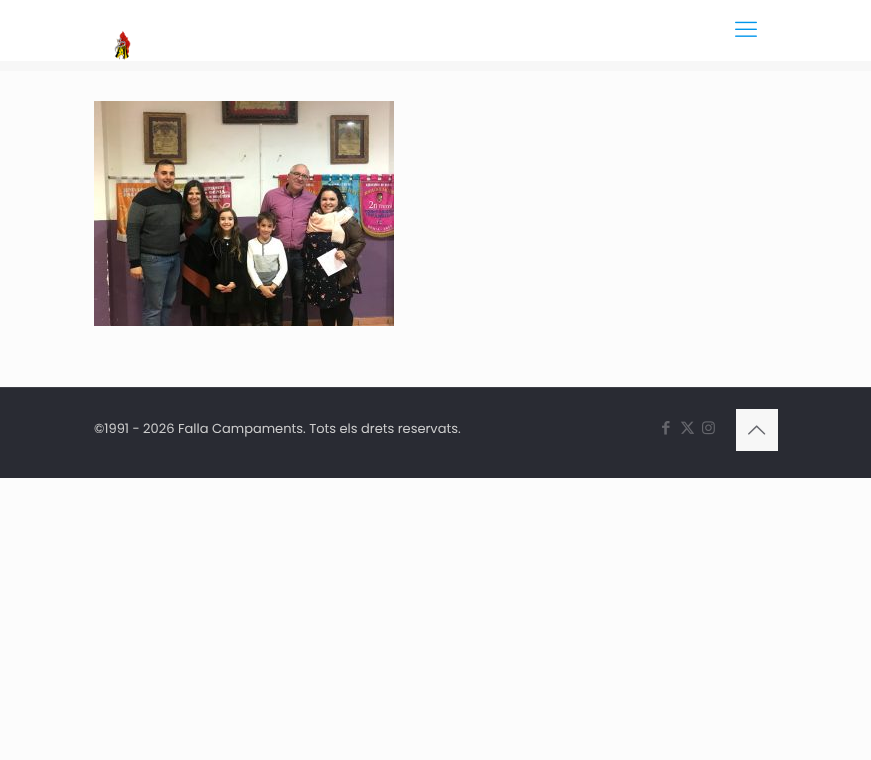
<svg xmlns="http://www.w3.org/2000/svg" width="871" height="760">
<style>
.a{font:13px Poppins;fill:#ccc}
</style>
<rect width="100%" height="100%" fill="#fcfcfc"/>
<path fill="#fff" d="M0 0h871v61H0z"/>
<image href="1.png" x="114" y="30" width="17" height="30"/>
<image href="2.png" x="735" y="21" width="22" height="16"/>
<path fill="#f7f7f7" d="M0 61h871v10H0z"/>
<image href="3.png" x="94" y="101" width="300" height="225"/>
<path fill="#292b33" d="M0 388h871v90H0z"/>
<path fill="#3e4047" d="M0 387h871v1H0z"/>
<image href="4.png" x="662" y="421" width="8" height="14"/>
<image href="5.png" x="681" y="421" width="13" height="13"/>
<image href="6.png" x="702" y="421" width="13" height="14"/>
<path fill="#f7f7f7" d="M736 409h42v42H736z"/>
<image href="7.png" x="748" y="425" width="18" height="10"/>
<text class="a" x="94" y="433">©1991 - 2026 Falla Campaments. Tots els drets reservats.</text>
</svg>
